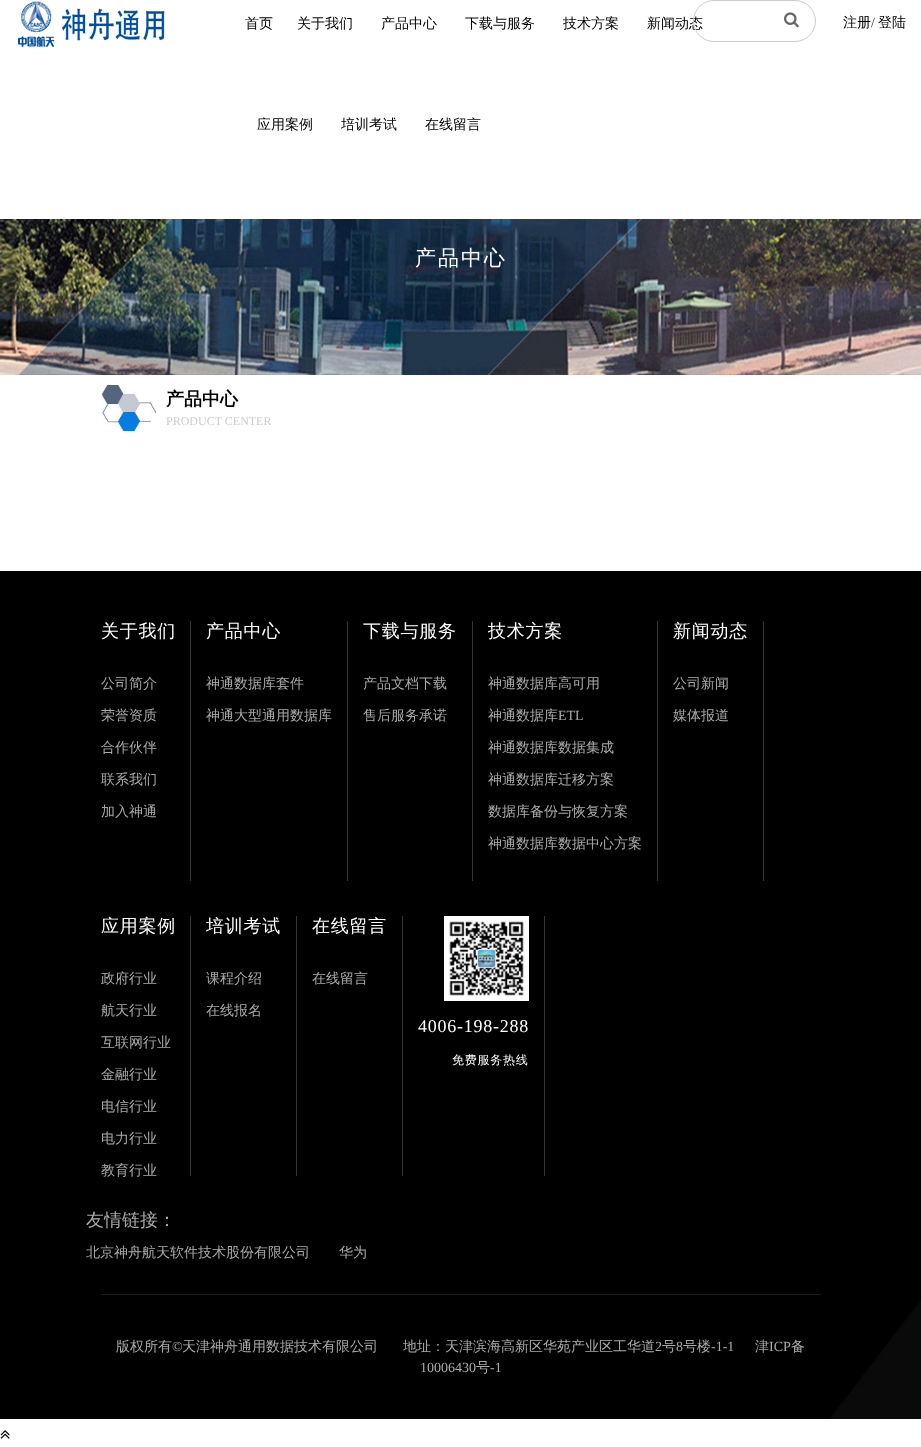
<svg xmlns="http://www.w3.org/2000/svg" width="921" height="1447">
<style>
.a{font:500 14px WenQuanYi Zen Hei;fill:#000}
.b{font:14px Liberation Serif;fill:#333}
.c{font:500 21px WenQuanYi Zen Hei;letter-spacing:2px;fill:#fff}
.d{font:bold 18px WenQuanYi Zen Hei;fill:#000}
.e{font:12px Liberation Serif;fill:#ccc}
.f{font:500 18px WenQuanYi Zen Hei;letter-spacing:0.75px;fill:#fff}
.g{font:500 14px WenQuanYi Zen Hei;fill:#aaa}
.h{font:14px Liberation Serif;fill:#aaa}
.i{font:18px Liberation Serif;letter-spacing:0.75px;fill:#fff}
.j{font:500 12px WenQuanYi Zen Hei;letter-spacing:0.75px;fill:#fff}
.k{font:500 18px WenQuanYi Zen Hei;fill:#aaa}
</style>
<defs>
<clipPath id="clip1"><path d="M101 764h74v32H101z"/></clipPath>
</defs>
<rect width="100%" height="100%" fill="#fff"/>
<image href="1.png" x="18" y="1" width="147" height="46"/>
<image href="3.png" x="0" y="219" width="921" height="156"/>
<image href="4.png" x="101" y="385" width="55" height="46"/>
<image href="5.png" x="0" y="571" width="921" height="848"/>
<path fill="#353535" d="M190 621h1v260H190z"/>
<path fill="#353535" d="M347 621h1v260H347z"/>
<path fill="#353535" d="M472 621h1v260H472z"/>
<path fill="#353535" d="M657 621h1v260H657z"/>
<path fill="#353535" d="M763 621h1v260H763z"/>
<path fill="#353535" d="M190 916h1v260H190z"/>
<path fill="#353535" d="M296 916h1v260H296z"/>
<path fill="#353535" d="M402 916h1v260H402z"/>
<path fill="#353535" d="M544 916h1v260H544z"/>
<image href="6.png" x="444" y="916" width="85" height="85"/>
<path fill="#1a1a1a" d="M101 1294h720v1H101z"/>
<image href="7.png" x="0" y="1430" width="10" height="9"/>
<text class="a" x="245" y="28">首页</text>
<text class="a" x="297" y="28">关于我们</text>
<text class="a" x="381" y="28">产品中心</text>
<text class="a" x="465" y="28">下载与服务</text>
<text class="a" x="563" y="28">技术方案</text>
<text class="a" x="647" y="28">新闻动态</text>
<text class="a" x="257" y="129">应用案例</text>
<text class="a" x="341" y="129">培训考试</text>
<text class="a" x="425" y="129">在线留言</text>
<rect fill="none" stroke="#ccc" x="693.5" y="0.5" width="122" height="41" rx="20.5"/>
<image href="2.png" x="784" y="12" width="15" height="16"/>
<text class="a" x="843" y="27">注册</text>
<text class="b" x="871" y="27">/</text>
<text class="a" x="878" y="27">登陆</text>
<text class="c" x="415" y="265">产品中心</text>
<text class="d" x="166" y="405">产品中心</text>
<text class="e" x="166" y="425">PRODUCT CENTER</text>
<text class="f" x="101" y="637">关于我们</text>
<text class="g" x="101" y="688">公司简介</text>
<text class="g" x="101" y="720">荣誉资质</text>
<text class="g" x="101" y="752">合作伙伴</text>
<g clip-path="url(#clip1)">
<text class="g" x="101" y="784">联系我们</text>
</g>
<text class="g" x="101" y="816">加入神通</text>
<text class="f" x="206" y="637">产品中心</text>
<text class="g" x="206" y="688">神通数据库套件</text>
<text class="g" x="206" y="720">神通大型通用数据库</text>
<text class="f" x="363" y="637">下载与服务</text>
<text class="g" x="363" y="688">产品文档下载</text>
<text class="g" x="363" y="720">售后服务承诺</text>
<text class="f" x="488" y="637">技术方案</text>
<text class="g" x="488" y="688">神通数据库高可用</text>
<text class="g" x="488" y="720">神通数据库</text>
<text class="h" x="558" y="720">ETL</text>
<text class="g" x="488" y="752">神通数据库数据集成</text>
<text class="g" x="488" y="784">神通数据库迁移方案</text>
<text class="g" x="488" y="816">数据库备份与恢复方案</text>
<text class="g" x="488" y="848">神通数据库数据中心方案</text>
<text class="f" x="673" y="637">新闻动态</text>
<text class="g" x="673" y="688">公司新闻</text>
<text class="g" x="673" y="720">媒体报道</text>
<text class="f" x="101" y="932">应用案例</text>
<text class="g" x="101" y="983">政府行业</text>
<text class="g" x="101" y="1015">航天行业</text>
<text class="g" x="101" y="1047">互联网行业</text>
<text class="g" x="101" y="1079">金融行业</text>
<text class="g" x="101" y="1111">电信行业</text>
<text class="g" x="101" y="1143">电力行业</text>
<text class="g" x="101" y="1175">教育行业</text>
<text class="f" x="206" y="932">培训考试</text>
<text class="g" x="206" y="983">课程介绍</text>
<text class="g" x="206" y="1015">在线报名</text>
<text class="f" x="312" y="932">在线留言</text>
<text class="g" x="312" y="983">在线留言</text>
<text class="i" x="418" y="1032">4006-198-288</text>
<text class="j" x="452" y="1064">免费服务热线</text>
<text class="k" x="86" y="1226">友情链接：</text>
<text class="g" x="86" y="1257">北京神舟航天软件技术股份有限公司</text>
<text class="g" x="339" y="1257">华为</text>
<text class="g" x="116" y="1351">版权所有</text>
<text class="h" x="172" y="1351">©</text>
<text class="g" x="182" y="1351">天津神舟通用数据技术有限公司</text>
<text class="g" x="403" y="1351">地址：天津滨海高新区华苑产业区工华道</text>
<text class="h" x="655" y="1351">2</text>
<text class="g" x="662" y="1351">号</text>
<text class="h" x="676" y="1351">8</text>
<text class="g" x="683" y="1351">号楼</text>
<text class="h" x="711" y="1351">-1-1</text>
<text class="g" x="755" y="1351">津</text>
<text class="h" x="769" y="1351">ICP</text>
<text class="g" x="791" y="1351">备</text>
<text class="h" x="420" y="1372">10006430</text>
<text class="g" x="476" y="1372">号</text>
<text class="h" x="490" y="1372">-1</text>
</svg>
